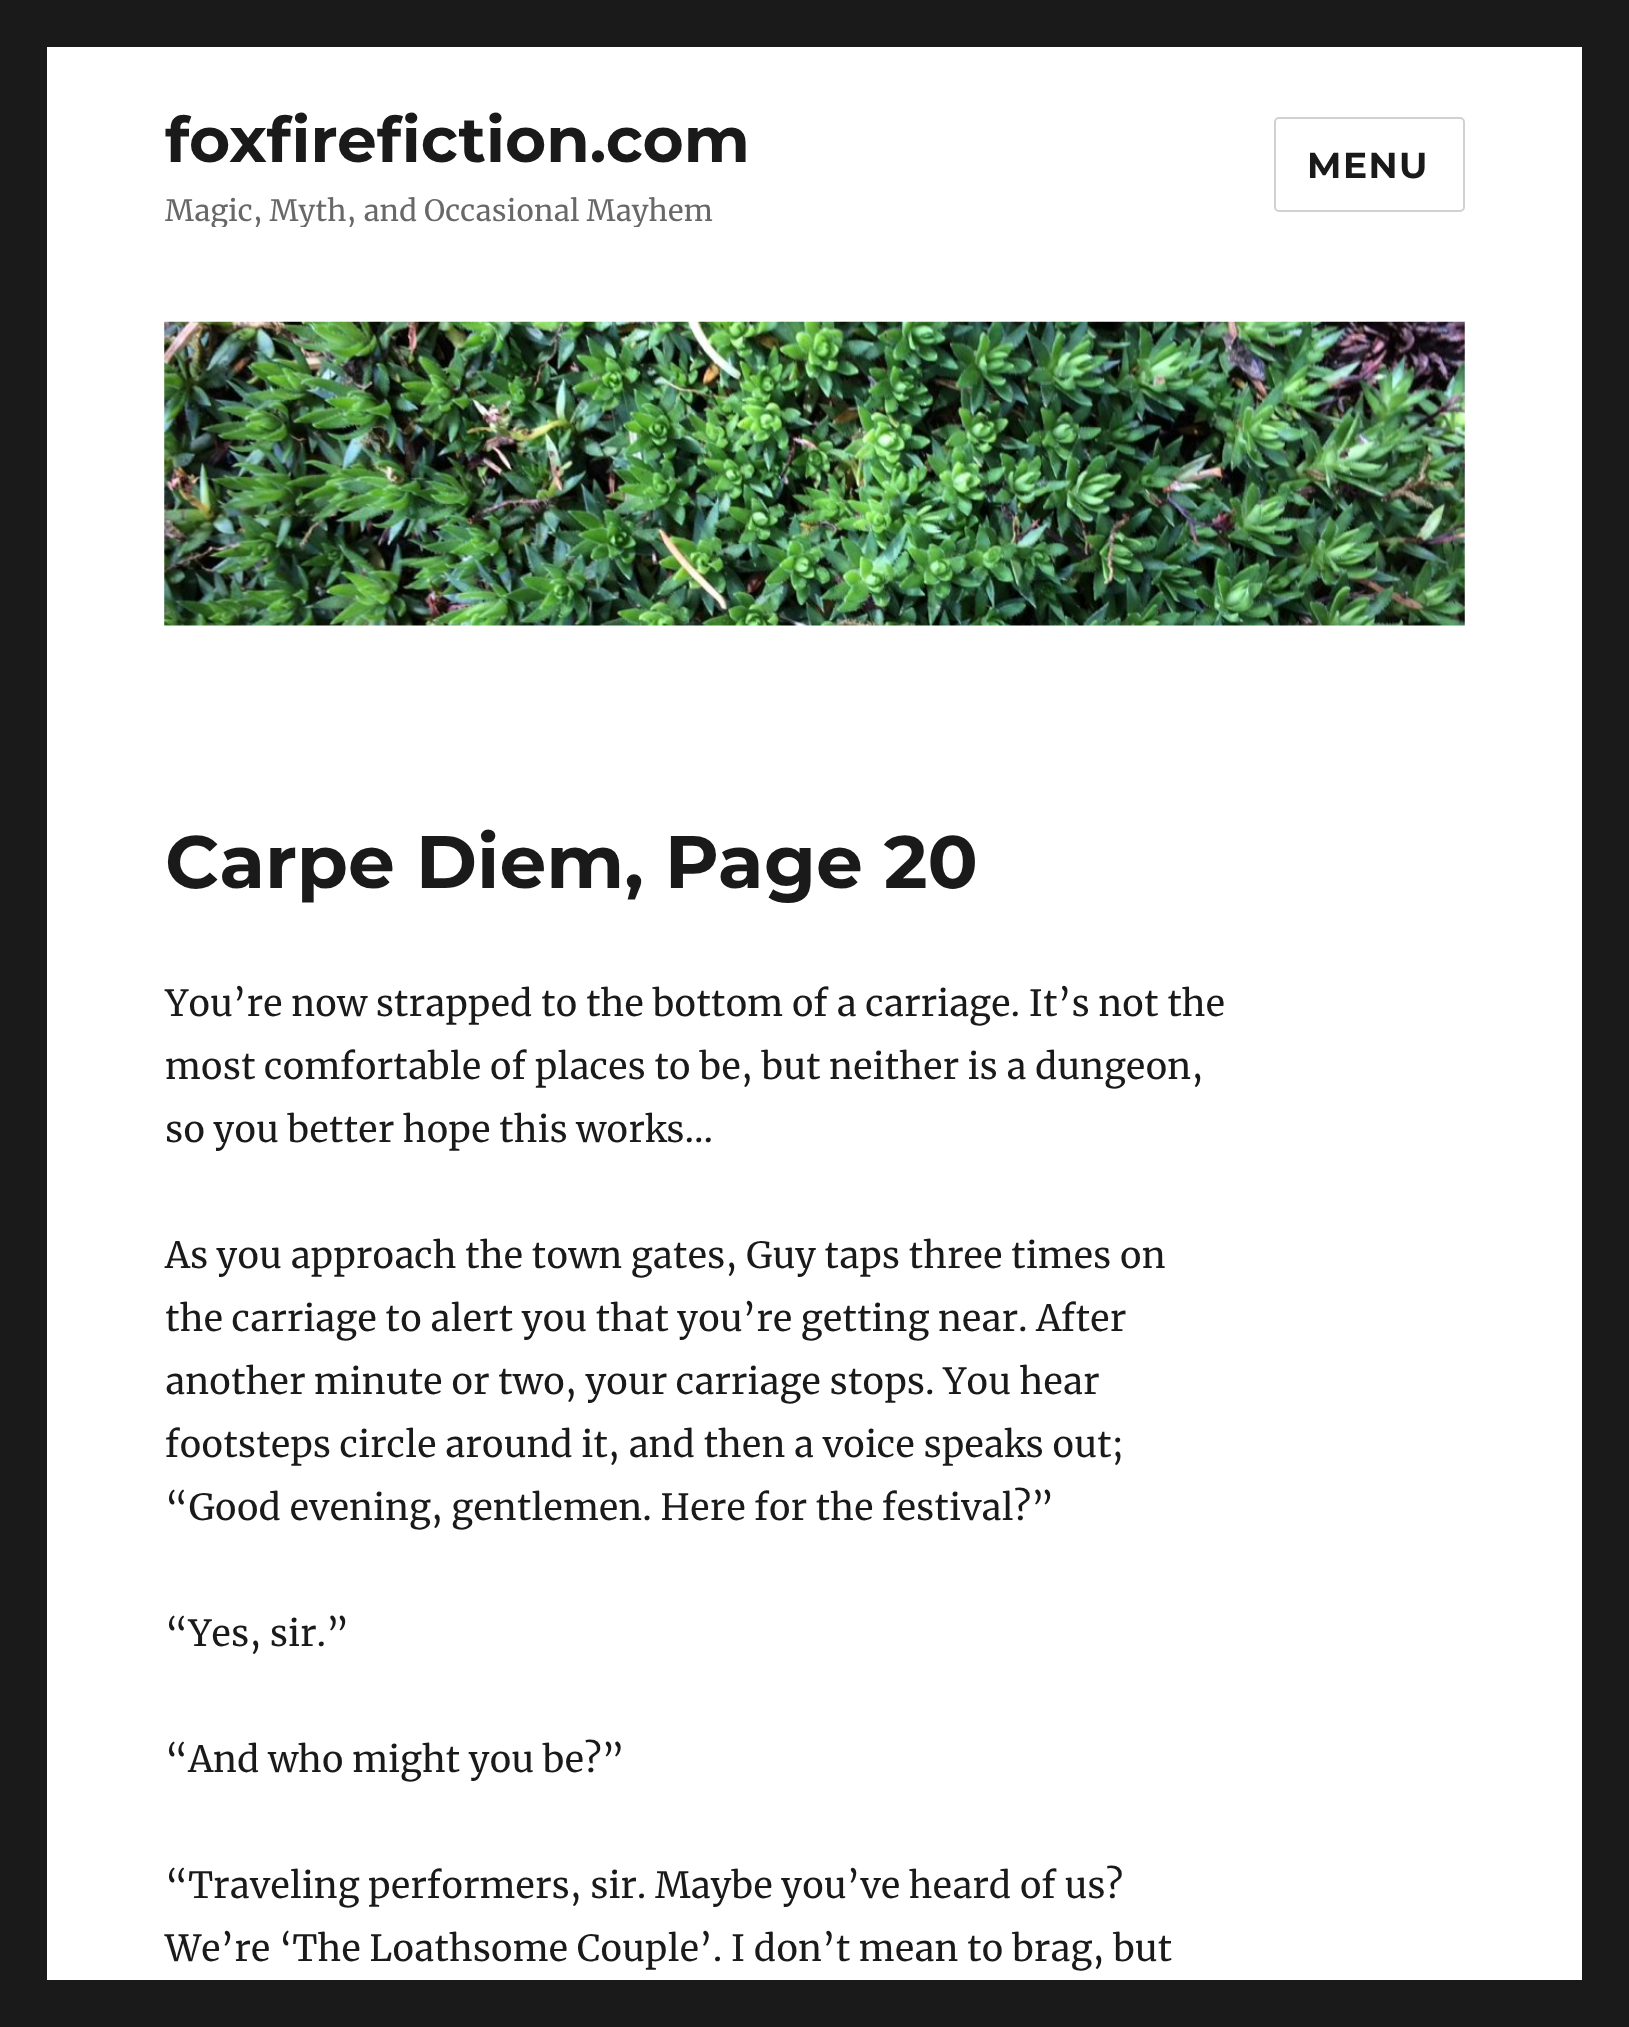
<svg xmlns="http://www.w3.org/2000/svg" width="1629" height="2027">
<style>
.a{font:100 63px Montserrat;fill:#1a1a1a}
.b{font:29.25px Merriweather;fill:#686868}
.c{font:100 36px Montserrat;letter-spacing:1.5px;fill:#1a1a1a}
.d{font:100 74.25px Montserrat;fill:#1a1a1a}
.e{font:36px Merriweather;fill:#1a1a1a}
</style>
<defs>
<clipPath id="clip1"><path d="M164 101h585v126H164z"/></clipPath>
</defs>
<rect width="100%" height="100%" fill="#1a1a1a"/>
<path fill="#fff" d="M47 47h1535v1933H47z"/>
<rect fill="none" stroke="#d1d1d1" stroke-width="2" x="1275" y="118" width="189" height="93" rx="4"/>
<image href="1.png" x="164" y="321" width="1301" height="305"/>
<text class="a" x="165" y="162">foxfirefiction.com</text>
<g clip-path="url(#clip1)">
<text class="b" x="165" y="221">Magic, Myth, and Occasional Mayhem</text>
</g>
<text class="c" x="1307" y="178">MENU</text>
<text class="d" x="165" y="888">Carpe Diem, Page 20</text>
<text class="e" x="165" y="1016">You’re now strapped to the bottom of a carriage. It’s not the</text>
<text class="e" x="165" y="1079">most comfortable of places to be, but neither is a dungeon,</text>
<text class="e" x="165" y="1142">so you better hope this works…</text>
<text class="e" x="165" y="1268">As you approach the town gates, Guy taps three times on</text>
<text class="e" x="165" y="1331">the carriage to alert you that you’re getting near. After</text>
<text class="e" x="165" y="1394">another minute or two, your carriage stops. You hear</text>
<text class="e" x="165" y="1457">footsteps circle around it, and then a voice speaks out;</text>
<text class="e" x="165" y="1520">“Good evening, gentlemen. Here for the festival?”</text>
<text class="e" x="165" y="1646">“Yes, sir.”</text>
<text class="e" x="165" y="1772">“And who might you be?”</text>
<text class="e" x="165" y="1898">“Traveling performers, sir. Maybe you’ve heard of us?</text>
<text class="e" x="165" y="1961">We’re ‘The Loathsome Couple’. I don’t mean to brag, but</text>
</svg>
